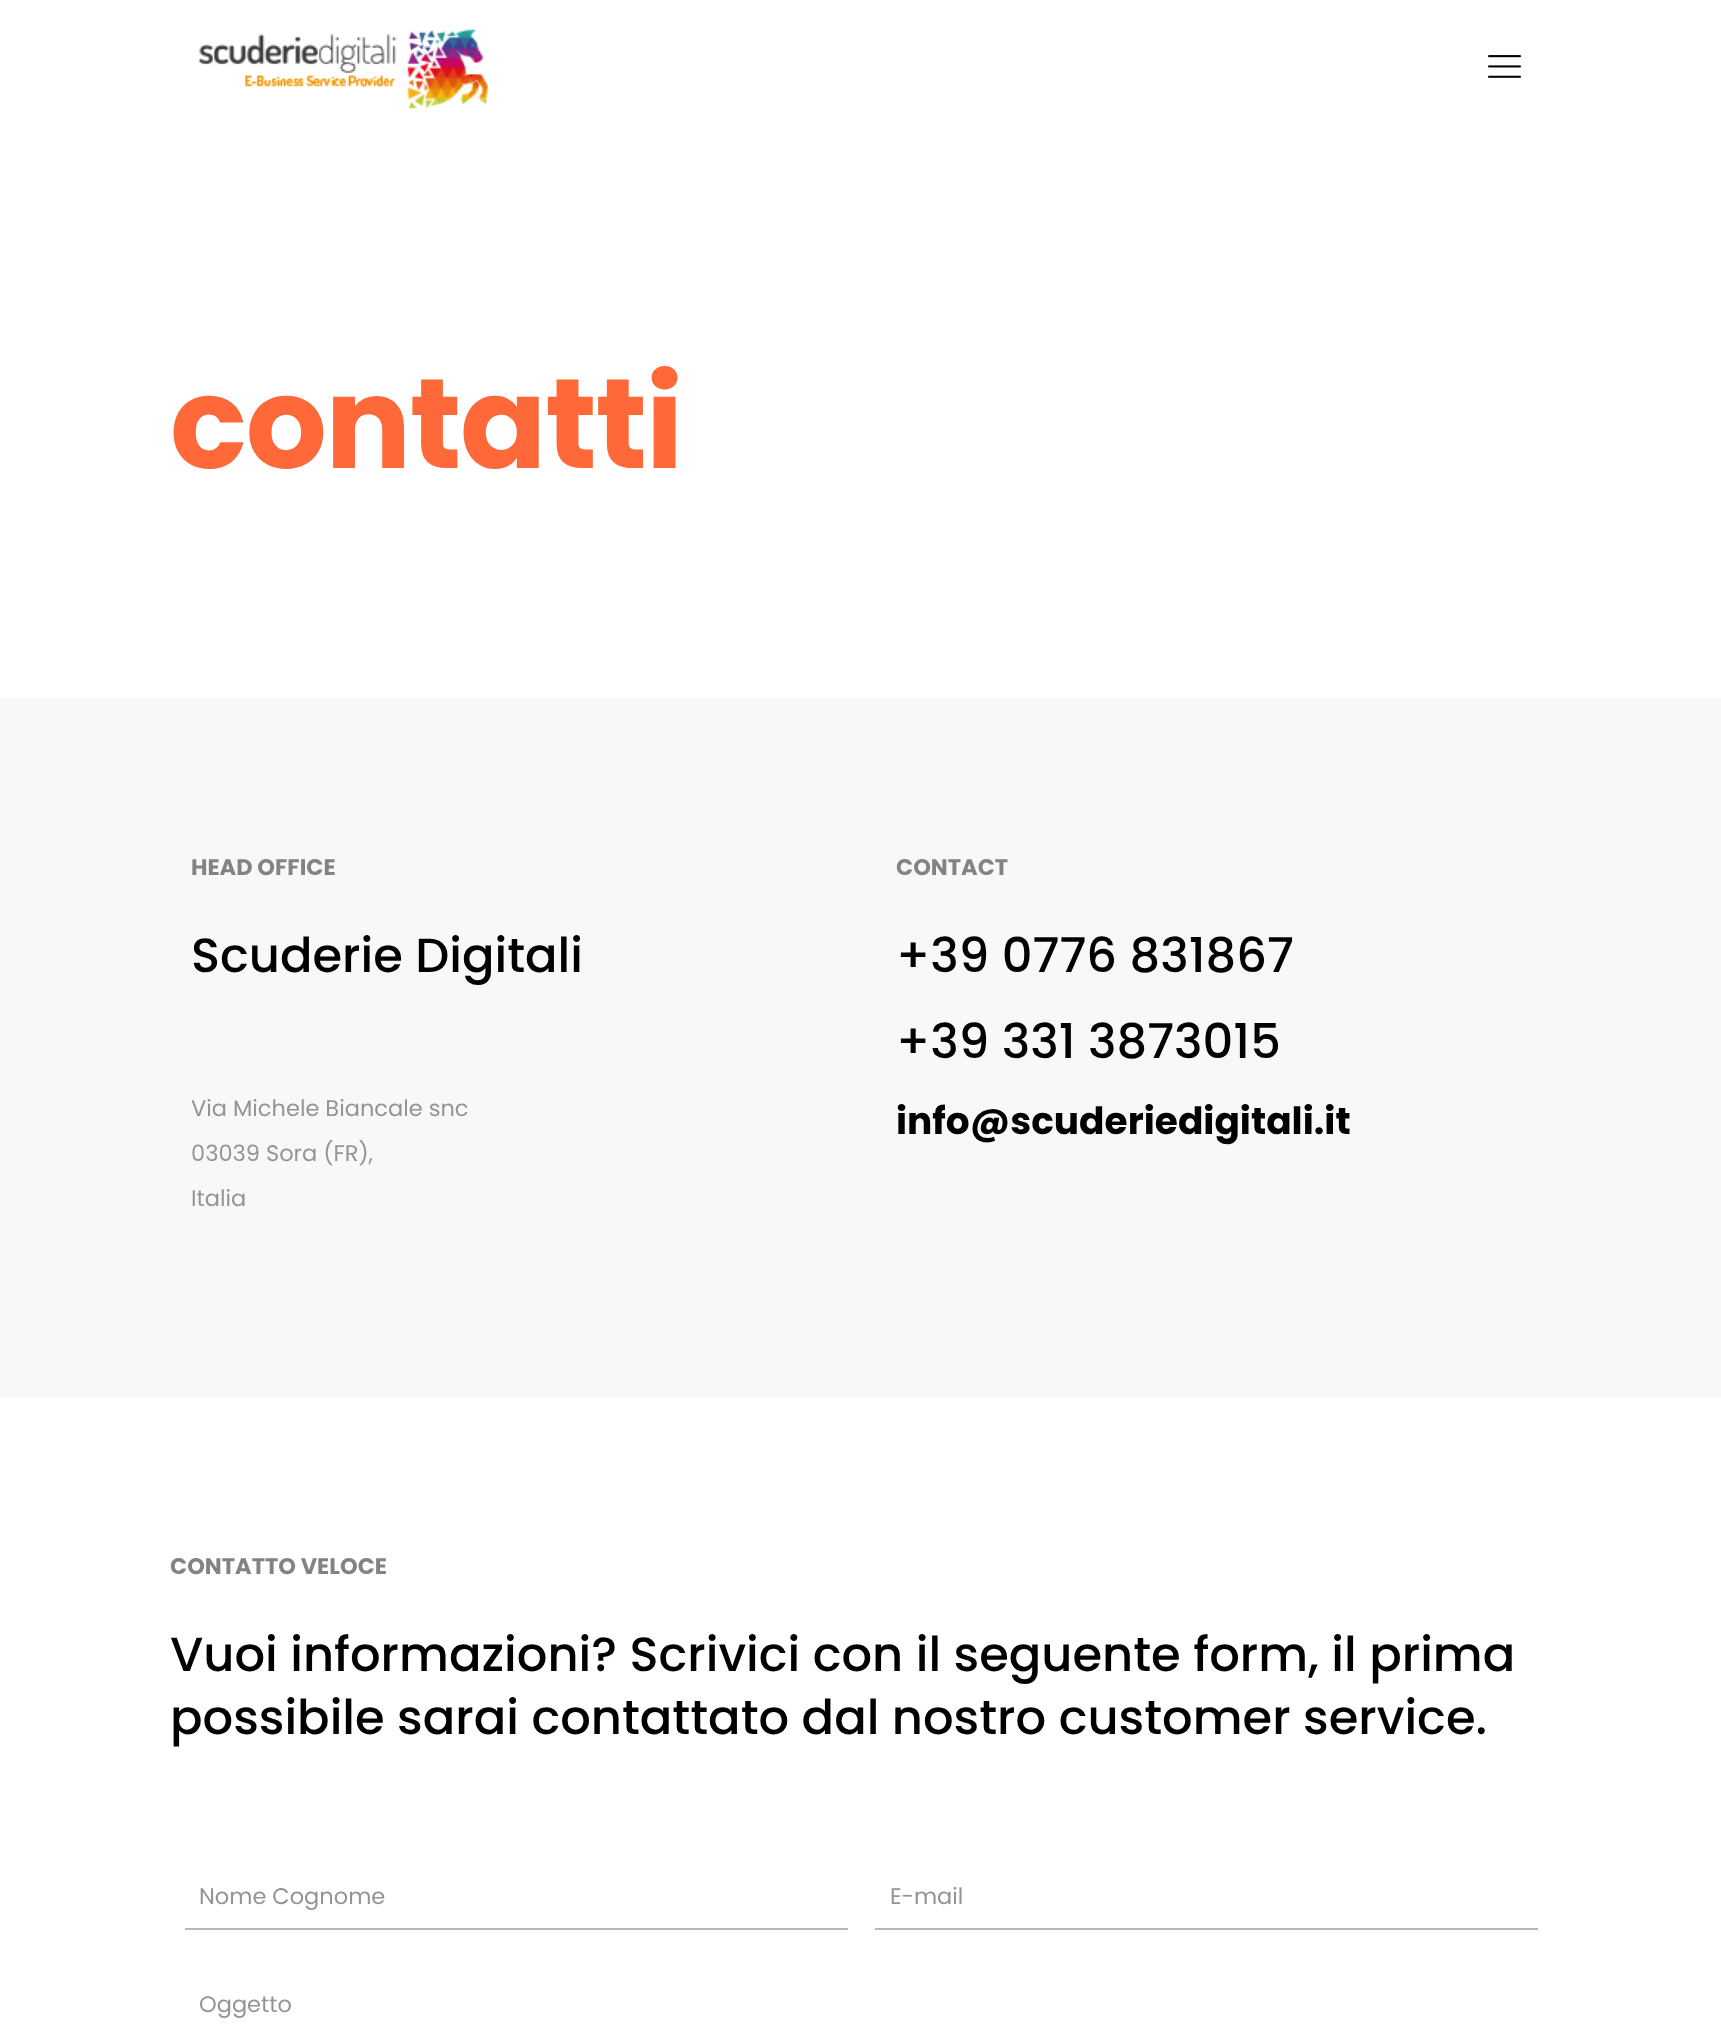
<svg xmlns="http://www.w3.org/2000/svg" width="1721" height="2035">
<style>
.a{font:bold 127.5px Poppins;letter-spacing:-1.5px;fill:#ff6839}
.b{font:bold 22.5px Poppins;fill:#838383}
.c{font:500 48px Poppins;fill:#000}
.d{font:22.5px Poppins;fill:#949494}
.e{font:bold 37.5px Poppins;fill:#000}
</style>
<rect width="100%" height="100%" fill="#fff"/>
<image href="1.png" x="199" y="29" width="289" height="80"/>
<image href="2.png" x="1488" y="55" width="33" height="23"/>
<path fill="#f8f8f8" d="M0 698h1721v699H0z"/>
<path fill="#b7b7b7" d="M185 1928h663v2H185z"/>
<path fill="#b7b7b7" d="M875 1928h663v2H875z"/>
<text class="a" x="170" y="468">contatti</text>
<text class="b" x="191" y="875">HEAD OFFICE</text>
<text class="c" x="191" y="972">Scuderie Digitali</text>
<text class="d" x="191" y="1116">Via Michele Biancale snc</text>
<text class="d" x="191" y="1161">03039 Sora (FR),</text>
<text class="d" x="191" y="1206">Italia</text>
<text class="b" x="896" y="875">CONTACT</text>
<text class="c" x="896" y="972">+39 0776 831867</text>
<text class="c" x="896" y="1058">+39 331 3873015</text>
<text class="e" x="896" y="1134">info@scuderiedigitali.it</text>
<text class="b" x="170" y="1574">CONTATTO VELOCE</text>
<text class="c" x="170" y="1671">Vuoi informazioni? Scrivici con il seguente form, il prima</text>
<text class="c" x="170" y="1734">possibile sarai contattato dal nostro customer service.</text>
<text class="d" x="199" y="1904">Nome Cognome</text>
<text class="d" x="890" y="1904">E-mail</text>
<text class="d" x="199" y="2012">Oggetto</text>
</svg>
